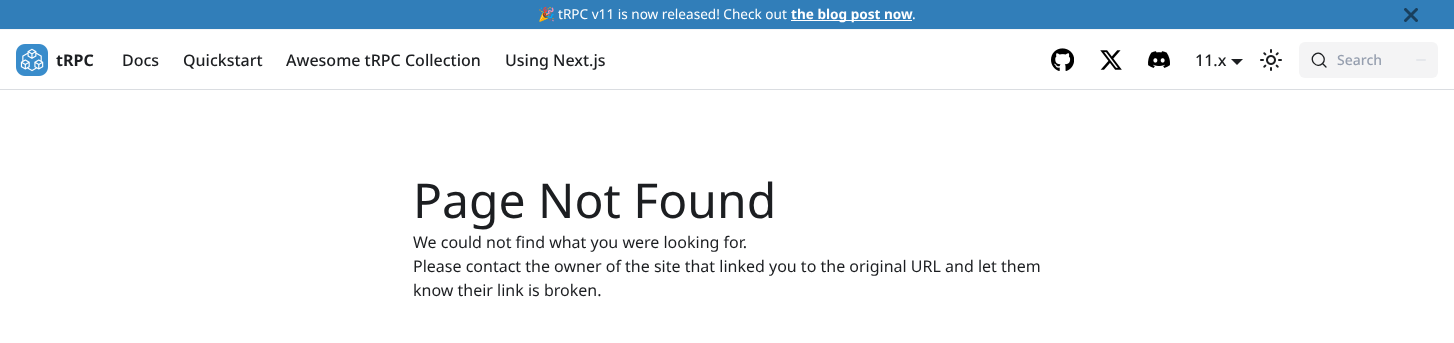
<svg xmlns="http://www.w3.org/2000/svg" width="1454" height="343">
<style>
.a{font:13.6px Noto Color Emoji;fill:#fff}
.b{font:13.6px Noto Sans;fill:#fff}
.c{font:bold 13.6px Noto Sans;fill:#fff}
.d{font:bold 16px Noto Sans;fill:#1c1e21}
.e{font:500 16px Noto Sans;fill:#1c1e21}
.f{font:500 14px Noto Sans;fill:#969faf}
.g{font:48px Noto Sans;fill:#1c1e21}
.h{font:16px Noto Sans;fill:#1c1e21}
</style>
<defs>
<clipPath id="clip1"><path d="M1404 8h14v14H1404z"/></clipPath>
</defs>
<rect width="100%" height="100%" fill="#fff"/>
<path fill="#317eb9" d="M0 0h1454v29H0z"/>
<path fill="#f5f6f7" d="M0 29h1454v1H0z"/>
<path fill="#fff" d="M791 20h121v1H791z"/>
<g clip-path="url(#clip1)">
<path fill="none" stroke="#193f5d" stroke-width="2.9" d="M1404.5 8.5l13 13m0-13l-13 13"/>
</g>
<path fill="#dadde1" d="M0 89h1454v1H0z"/>
<image href="1.png" x="16" y="44" width="32" height="32"/>
<image href="2.png" x="1051" y="48" width="23" height="23"/>
<image href="3.png" x="1100" y="50" width="22" height="20"/>
<image href="4.png" x="1148" y="51" width="22" height="17"/>
<path fill="#1c1e21" d="M1231 59h12l-6 6z"/>
<image href="5.png" x="1260" y="49" width="22" height="22"/>
<rect fill="#f4f4f5" x="1299" y="42" width="139" height="36" rx="6"/>
<path fill="none" stroke="#1c1e21" stroke-width="1.3" stroke-linecap="round" stroke-linejoin="round" d="M1322.5 63.5l3.5 3.5l-3.5-3.5c-5.5 5.5-14-3-8.5-8.5c5.5-5.5 14 3 8.5 8.5z"/>
<rect fill="#e5e7eb" x="1416" y="59" width="10" height="2" rx="1"/>
<text class="a" x="538" y="19">🎉</text>
<text class="b" x="558" y="19">tRPC v11 is now released! Check out</text>
<text class="c" x="791" y="19">the blog post now</text>
<text class="b" x="912" y="19">.</text>
<text class="d" x="56" y="66">tRPC</text>
<text class="e" x="122" y="66">Docs</text>
<text class="e" x="183" y="66">Quickstart</text>
<text class="e" x="286" y="66">Awesome tRPC Collection</text>
<text class="e" x="505" y="66">Using Next.js</text>
<text class="e" x="1195" y="66">11.x</text>
<text class="f" x="1337" y="65">Search</text>
<text class="g" x="413" y="218">Page Not Found</text>
<text class="h" x="413" y="248">We could not find what you were looking for.</text>
<text class="h" x="413" y="272">Please contact the owner of the site that linked you to the original URL and let them</text>
<text class="h" x="413" y="296">know their link is broken.</text>
</svg>
